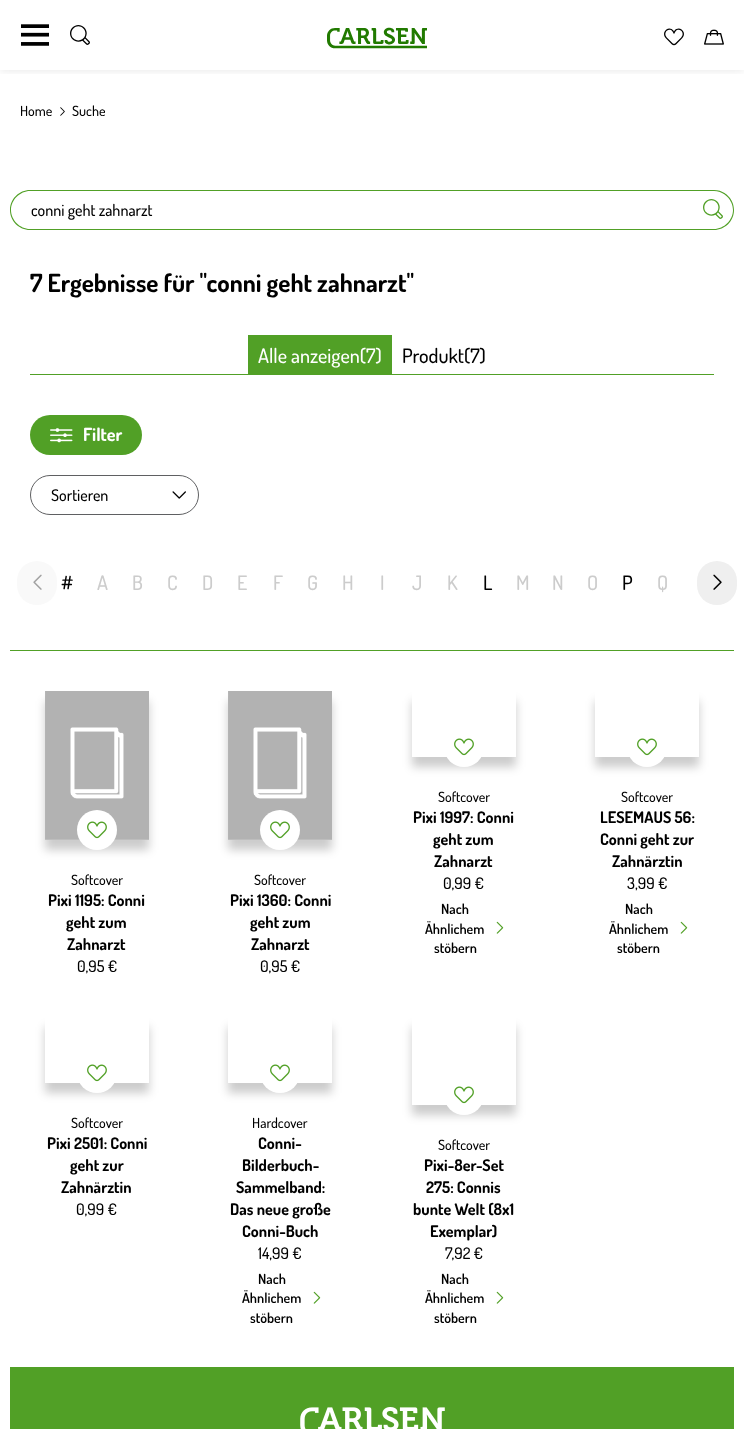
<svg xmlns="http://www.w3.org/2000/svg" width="744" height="1429">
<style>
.a{font:500 14px Dosis;fill:#000}
.b{font:500 16px Dosis;fill:#000}
.c{font:bold 25px Dosis;fill:#000}
.d{font:500 20px Dosis;fill:#fff}
.e{font:500 20px Dosis;fill:#000}
.f{font:bold 18px Dosis;fill:#fff}
.g{font:500 20px Dosis;fill:#ccc}
.h{font:bold 16px Dosis;fill:#000}
.i{font:600 14px Dosis;fill:#000}
</style>
<defs>
<clipPath id="clip1"><path d="M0 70h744v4H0z"/></clipPath>
<clipPath id="clip2"><path d="M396 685h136v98h-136zm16 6h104v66h-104z" clip-rule="evenodd"/></clipPath>
<clipPath id="clip3"><path d="M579 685h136v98h-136zm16 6h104v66h-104z" clip-rule="evenodd"/></clipPath>
<clipPath id="clip4"><path d="M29 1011h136v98h-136zm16 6h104v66h-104z" clip-rule="evenodd"/></clipPath>
<clipPath id="clip5"><path d="M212 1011h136v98h-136zm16 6h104v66h-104z" clip-rule="evenodd"/></clipPath>
<clipPath id="clip6"><path d="M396 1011h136v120h-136zm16 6h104v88h-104z" clip-rule="evenodd"/></clipPath>
</defs>
<rect width="100%" height="100%" fill="#fff"/>
<g clip-path="url(#clip1)">
<path fill="#0000001a" filter="blur(5px)" d="M0 0h744v70H0z"/>
</g>
<image href="1.png" x="21" y="24" width="28" height="22"/>
<image href="2.png" x="70" y="25" width="20" height="20"/>
<image href="3.png" x="327" y="27" width="100" height="22"/>
<image href="4.png" x="664" y="28" width="20" height="18"/>
<image href="5.png" x="704" y="29" width="20" height="16"/>
<image href="6.png" x="60" y="107" width="5" height="9"/>
<path fill="#51a026" fill-rule="evenodd" d="M30 190h663v40h-663c-11 0-20-9-20-20c0-11 9-20 20-20zm0 1h663v38h-663c-10 0-19-9-19-19c0-10 9-19 19-19z"/>
<path fill="#51a026" fill-rule="evenodd" d="M693 190h21c11 0 20 9 20 20c0 11-9 20-20 20h-21zm0 1h21c10 0 19 9 19 19c0 10-9 19-19 19h-21z"/>
<image href="7.png" x="703" y="199" width="20" height="20"/>
<path fill="#51a026" d="M248 335h144v39H248z"/>
<path fill="#51a026" d="M30 374h684v1H30z"/>
<rect fill="#51a026" x="30" y="415" width="112" height="40" rx="20"/>
<image href="8.png" x="50" y="428" width="23" height="15"/>
<rect fill="none" stroke="#5f6062" x="30.5" y="475.5" width="168" height="39" rx="19.5"/>
<image href="9.png" x="172" y="491" width="14" height="8"/>
<rect fill="#f9f9f9" x="17" y="561" width="40" height="44" rx="20"/>
<image href="10.png" x="33" y="574" width="9" height="16"/>
<rect fill="#efefef" x="697" y="561" width="40" height="44" rx="20"/>
<image href="11.png" x="713" y="574" width="9" height="16"/>
<path fill="#51a026" d="M10 650h724v1H10z"/>
<path fill="#00000033" filter="blur(5px)" d="M45 701h104v149H45z"/>
<image href="12.png" x="45" y="691" width="104" height="149"/>
<circle fill="#fff" cx="97" cy="830" r="20"/>
<image href="13.png" x="87" y="821" width="20" height="18"/>
<path fill="#00000033" filter="blur(5px)" d="M228 701h104v149H228z"/>
<image href="12.png" x="228" y="691" width="104" height="149"/>
<circle fill="#fff" cx="280" cy="830" r="20"/>
<image href="13.png" x="270" y="821" width="20" height="18"/>
<g clip-path="url(#clip2)">
<path fill="#00000033" filter="blur(5px)" d="M412 701h104v66H412z"/>
</g>
<circle fill="#fff" cx="464" cy="747" r="20"/>
<image href="13.png" x="454" y="738" width="20" height="18"/>
<image href="14.png" x="496" y="921" width="8" height="13"/>
<g clip-path="url(#clip3)">
<path fill="#00000033" filter="blur(5px)" d="M595 701h104v66H595z"/>
</g>
<circle fill="#fff" cx="647" cy="747" r="20"/>
<image href="13.png" x="637" y="738" width="20" height="18"/>
<image href="14.png" x="680" y="921" width="8" height="13"/>
<g clip-path="url(#clip4)">
<path fill="#00000033" filter="blur(5px)" d="M45 1027h104v66H45z"/>
</g>
<circle fill="#fff" cx="97" cy="1073" r="20"/>
<image href="13.png" x="87" y="1064" width="20" height="18"/>
<g clip-path="url(#clip5)">
<path fill="#00000033" filter="blur(5px)" d="M228 1027h104v66H228z"/>
</g>
<circle fill="#fff" cx="280" cy="1073" r="20"/>
<image href="13.png" x="270" y="1064" width="20" height="18"/>
<image href="14.png" x="313" y="1291" width="8" height="13"/>
<g clip-path="url(#clip6)">
<path fill="#00000033" filter="blur(5px)" d="M412 1027h104v88H412z"/>
</g>
<circle fill="#fff" cx="464" cy="1095" r="20"/>
<image href="13.png" x="454" y="1086" width="20" height="18"/>
<image href="14.png" x="496" y="1291" width="8" height="13"/>
<path fill="#51a026" d="M10 1367h724v62H10z"/>
<image href="15.png" x="300" y="1407" width="145" height="22"/>
<text class="a" x="20" y="116">Home</text>
<text class="a" x="72" y="116">Suche</text>
<text class="b" x="31" y="216">conni geht zahnarzt</text>
<text class="c" x="30" y="292">7 Ergebnisse für "conni geht zahnarzt"</text>
<text class="d" x="258" y="363">Alle anzeigen(7)</text>
<text class="e" x="402" y="363">Produkt(7)</text>
<text class="f" x="83" y="441">Filter</text>
<text class="b" x="51" y="501">Sortieren</text>
<text class="e" x="61" y="590">#</text>
<text class="g" x="97" y="590">A</text>
<text class="g" x="132" y="590">B</text>
<text class="g" x="167" y="590">C</text>
<text class="g" x="202" y="590">D</text>
<text class="g" x="237" y="590">E</text>
<text class="g" x="273" y="590">F</text>
<text class="g" x="307" y="590">G</text>
<text class="g" x="342" y="590">H</text>
<text class="g" x="380" y="590">I</text>
<text class="g" x="412" y="590">J</text>
<text class="g" x="447" y="590">K</text>
<text class="e" x="483" y="590">L</text>
<text class="g" x="516" y="590">M</text>
<text class="g" x="552" y="590">N</text>
<text class="g" x="587" y="590">O</text>
<text class="e" x="622" y="590">P</text>
<text class="g" x="657" y="590">Q</text>
<text class="a" x="71" y="885">Softcover</text>
<text class="h" x="48" y="906">Pixi 1195: Conni</text>
<text class="h" x="66" y="928">geht zum</text>
<text class="h" x="67" y="950">Zahnarzt</text>
<text class="b" x="77" y="972">0,95 €</text>
<text class="a" x="254" y="885">Softcover</text>
<text class="h" x="230" y="906">Pixi 1360: Conni</text>
<text class="h" x="250" y="928">geht zum</text>
<text class="h" x="251" y="950">Zahnarzt</text>
<text class="b" x="260" y="972">0,95 €</text>
<text class="a" x="438" y="802">Softcover</text>
<text class="h" x="413" y="823">Pixi 1997: Conni</text>
<text class="h" x="433" y="845">geht zum</text>
<text class="h" x="434" y="867">Zahnarzt</text>
<text class="b" x="443" y="889">0,99 €</text>
<text class="i" x="441" y="914">Nach</text>
<text class="i" x="425" y="934">Ähnlichem</text>
<text class="i" x="434" y="953">stöbern</text>
<text class="a" x="621" y="802">Softcover</text>
<text class="h" x="600" y="823">LESEMAUS 56:</text>
<text class="h" x="600" y="845">Conni geht zur</text>
<text class="h" x="612" y="867">Zahnärztin</text>
<text class="b" x="627" y="889">3,99 €</text>
<text class="i" x="625" y="914">Nach</text>
<text class="i" x="609" y="934">Ähnlichem</text>
<text class="i" x="617" y="953">stöbern</text>
<text class="a" x="71" y="1128">Softcover</text>
<text class="h" x="47" y="1149">Pixi 2501: Conni</text>
<text class="h" x="70" y="1171">geht zur</text>
<text class="h" x="61" y="1193">Zahnärztin</text>
<text class="b" x="76" y="1215">0,99 €</text>
<text class="a" x="252" y="1128">Hardcover</text>
<text class="h" x="258" y="1149">Conni-</text>
<text class="h" x="242" y="1171">Bilderbuch-</text>
<text class="h" x="236" y="1193">Sammelband:</text>
<text class="h" x="230" y="1215">Das neue große</text>
<text class="h" x="242" y="1237">Conni-Buch</text>
<text class="b" x="258" y="1259">14,99 €</text>
<text class="i" x="258" y="1284">Nach</text>
<text class="i" x="242" y="1303">Ähnlichem</text>
<text class="i" x="250" y="1323">stöbern</text>
<text class="a" x="438" y="1150">Softcover</text>
<text class="h" x="424" y="1171">Pixi-8er-Set</text>
<text class="h" x="426" y="1193">275: Connis</text>
<text class="h" x="413" y="1215">bunte Welt (8x1</text>
<text class="h" x="430" y="1237">Exemplar)</text>
<text class="b" x="445" y="1259">7,92 €</text>
<text class="i" x="441" y="1284">Nach</text>
<text class="i" x="425" y="1303">Ähnlichem</text>
<text class="i" x="434" y="1323">stöbern</text>
</svg>
